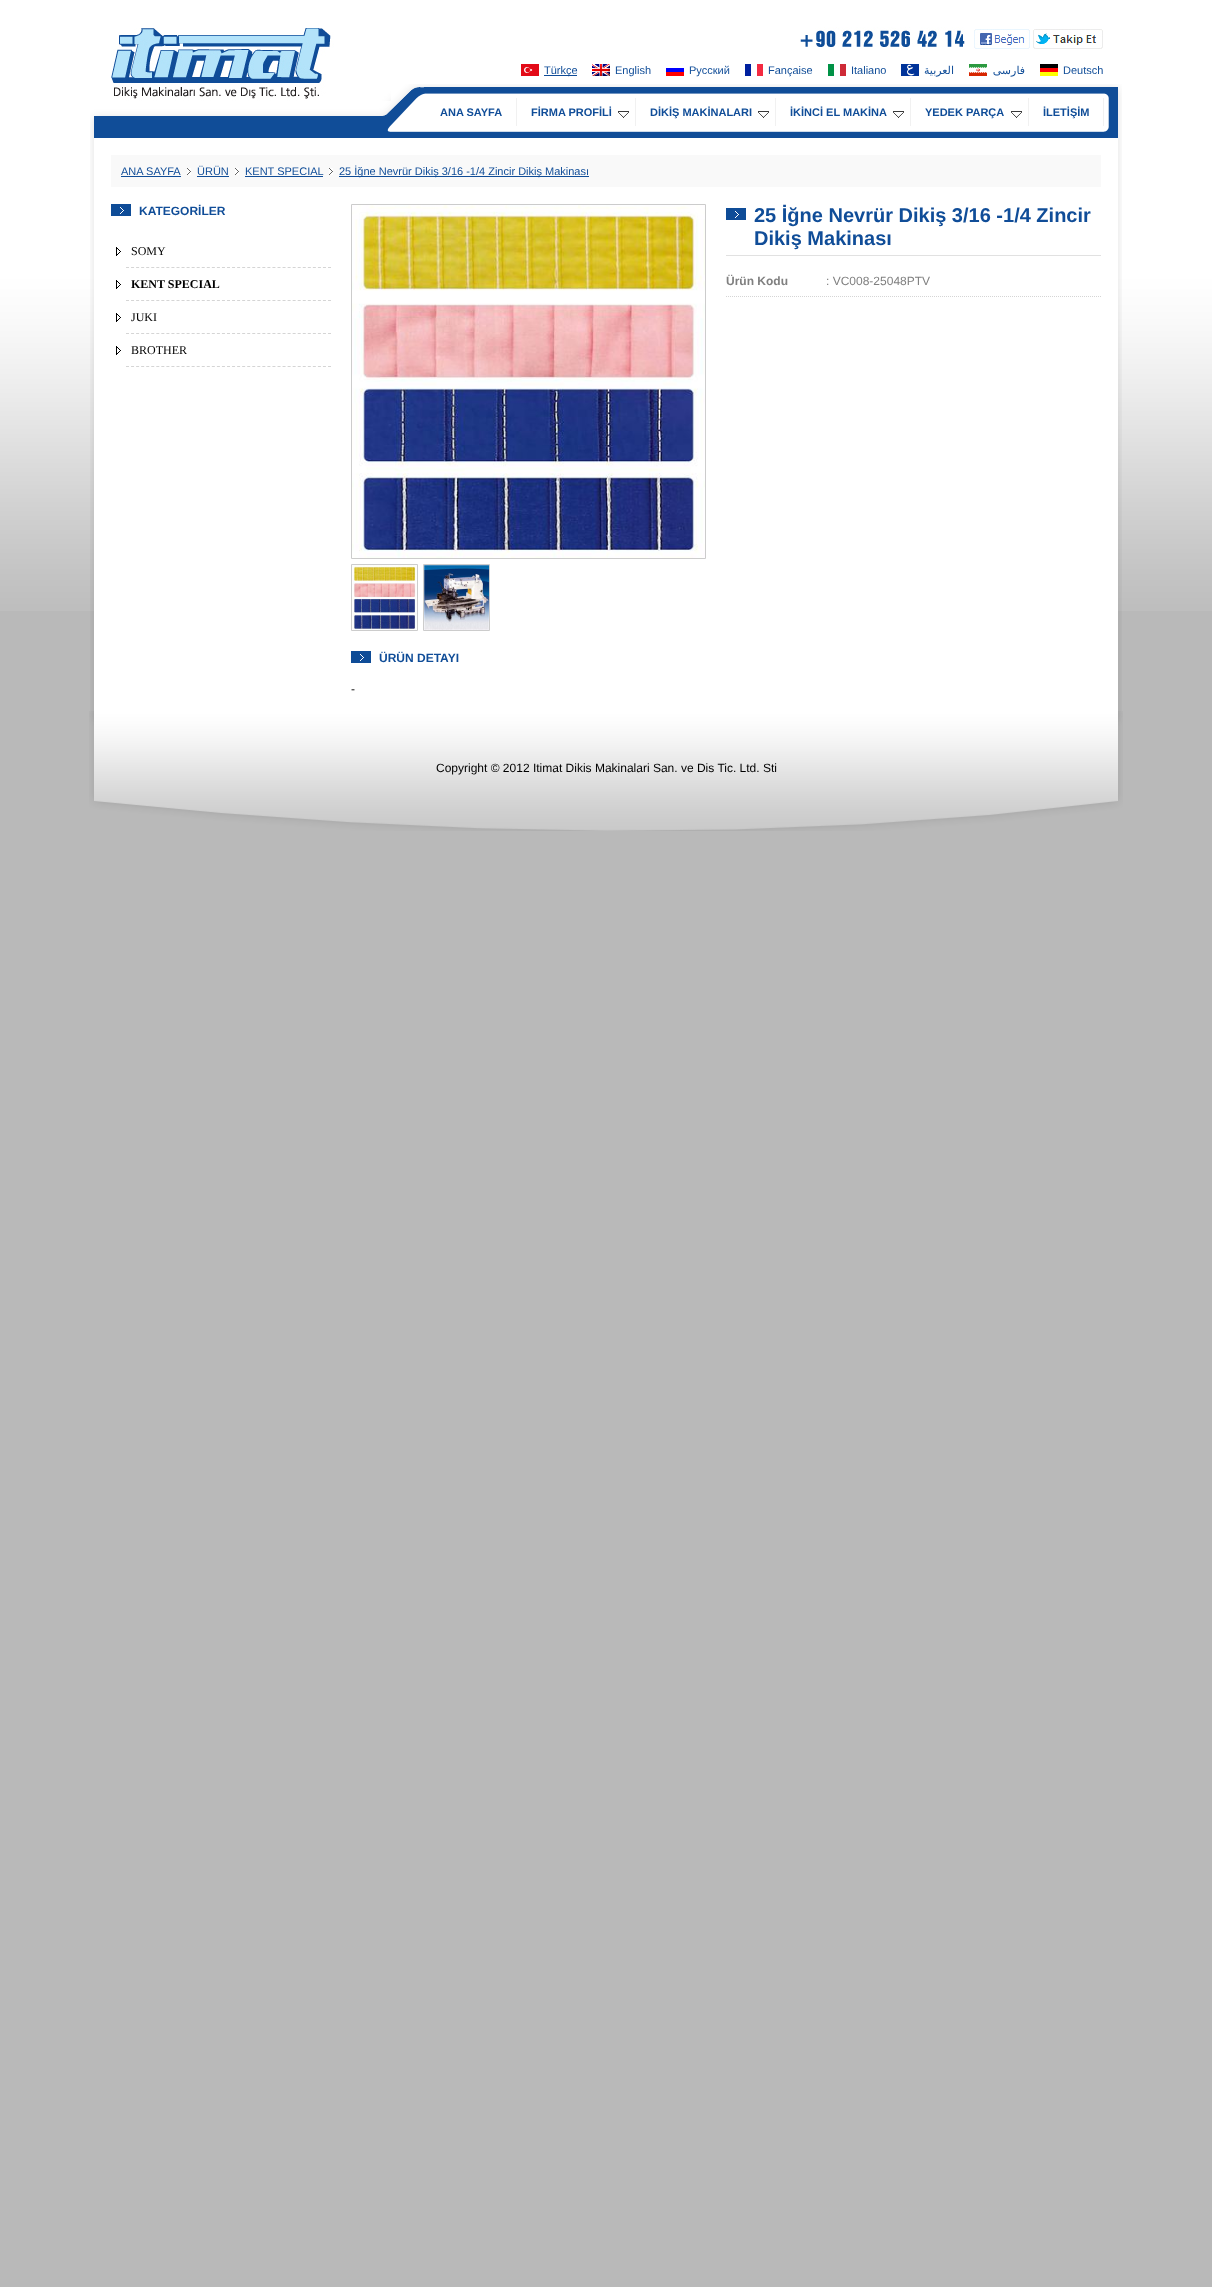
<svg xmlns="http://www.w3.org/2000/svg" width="1212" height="2287">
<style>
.a{font:11px Liberation Sans;fill:#104d98}
.b{font:11px DejaVu Sans;direction:rtl;fill:#104d98}
.c{font:bold 11px Liberation Sans;fill:#104d98}
.d{font:bold 12px Liberation Sans;fill:#104d98}
.e{font:12px Liberation Serif;fill:#000}
.f{font:bold 12px Liberation Serif;fill:#000}
.g{font:bold 20px Liberation Sans;fill:#104d98}
.h{font:bold 12px Liberation Sans;fill:#808080}
.i{font:12px Liberation Sans;fill:#808080}
.j{font:12px Liberation Sans;fill:#000}
</style>
<rect width="100%" height="100%" fill="#b9b9b9"/>
<image href="1.png" x="0" y="0" width="1212" height="611"/>
<image href="2.png" x="111" y="28" width="280" height="73"/>
<image href="3.png" x="800" y="27" width="165" height="20"/>
<image href="4.png" x="974" y="29" width="56" height="20"/>
<image href="5.png" x="1033" y="29" width="70" height="20"/>
<image href="6.png" x="521" y="64" width="18" height="12"/>
<path fill="#0f4c98" d="M544 75h33v1H544z"/>
<image href="7.png" x="592" y="64" width="18" height="12"/>
<image href="8.png" x="666" y="68" width="18" height="8"/>
<image href="9.png" x="745" y="64" width="18" height="12"/>
<image href="10.png" x="828" y="64" width="18" height="12"/>
<image href="11.png" x="901" y="64" width="18" height="12"/>
<image href="12.png" x="969" y="64" width="18" height="12"/>
<image href="13.png" x="1040" y="64" width="18" height="12"/>
<image href="14.png" x="90" y="84" width="1032" height="54"/>
<path fill="#f1f1f1" d="M516 98h1v28H516z"/>
<path fill="#f1f1f1" d="M635 98h1v28H635z"/>
<image href="15.png" x="618" y="111" width="11" height="7"/>
<path fill="#f1f1f1" d="M775 98h1v28H775z"/>
<image href="15.png" x="758" y="111" width="11" height="7"/>
<path fill="#f1f1f1" d="M910 98h1v28H910z"/>
<image href="15.png" x="893" y="111" width="11" height="7"/>
<path fill="#f1f1f1" d="M1028 98h1v28H1028z"/>
<image href="15.png" x="1011" y="111" width="11" height="7"/>
<path fill="#f1f1f1" d="M1103 98h1v28H1103z"/>
<image href="16.png" x="90" y="138" width="1032" height="573"/>
<path fill="#f9f9f9" d="M111 155h990v32H111z"/>
<path fill="#104d98" d="M121 176h60v1H121z"/>
<image href="17.png" x="187" y="168" width="4" height="7"/>
<path fill="#104d98" d="M197 176h32v1H197z"/>
<image href="17.png" x="235" y="168" width="4" height="7"/>
<path fill="#104d98" d="M245 176h78v1H245z"/>
<image href="17.png" x="329" y="168" width="4" height="7"/>
<path fill="#104d98" d="M339 176h250v1H339z"/>
<image href="18.png" x="111" y="204" width="20" height="12"/>
<image href="19.png" x="116" y="247" width="5" height="9"/>
<path fill="none" stroke="#d5d5d5" stroke-dasharray="3 2.05" d="M126 267.5h205"/>
<image href="19.png" x="116" y="280" width="5" height="9"/>
<path fill="none" stroke="#d5d5d5" stroke-dasharray="3 2.05" d="M126 300.5h205"/>
<image href="19.png" x="116" y="313" width="5" height="9"/>
<path fill="none" stroke="#d5d5d5" stroke-dasharray="3 2.05" d="M126 333.5h205"/>
<image href="19.png" x="116" y="346" width="5" height="9"/>
<path fill="none" stroke="#d5d5d5" stroke-dasharray="3 2.05" d="M126 366.5h205"/>
<path fill="none" stroke="#ccc" d="M351.5 204.5h354v354H351.5z"/>
<image href="20.png" x="352" y="205" width="353" height="353"/>
<path fill="none" stroke="#ccc" d="M351.5 564.5h66v66H351.5z"/>
<image href="21.png" x="352" y="565" width="65" height="65"/>
<path fill="none" stroke="#ccc" d="M423.5 564.5h66v66H423.5z"/>
<image href="22.png" x="424" y="565" width="65" height="65"/>
<image href="18.png" x="726" y="208" width="20" height="12"/>
<path fill="#e1e1e1" d="M726 255h375v1H726z"/>
<path fill="none" stroke="#d5d5d5" stroke-dasharray="1 1" d="M726 296.5h100"/>
<path fill="none" stroke="#d5d5d5" stroke-dasharray="1 1" d="M826 296.5h275"/>
<image href="18.png" x="351" y="651" width="20" height="12"/>
<image href="23.png" x="89" y="711" width="1034" height="120"/>
<text class="a" x="544" y="74">Türkçe</text>
<text class="a" x="615" y="74">English</text>
<text class="a" x="689" y="74">Pусский</text>
<text class="a" x="768" y="74">Fançaise</text>
<text class="a" x="851" y="74">Italiano</text>
<text class="b" x="954" y="74">العربية</text>
<text class="b" x="1025" y="74">فارسی</text>
<text class="a" x="1063" y="74">Deutsch</text>
<text class="c" x="440" y="116">ANA SAYFA</text>
<text class="c" x="531" y="116">FİRMA PROFİLİ</text>
<text class="c" x="650" y="116">DİKİŞ MAKİNALARI</text>
<text class="c" x="790" y="116">İKİNCİ EL MAKİNA</text>
<text class="c" x="925" y="116">YEDEK PARÇA</text>
<text class="c" x="1043" y="116">İLETİŞİM</text>
<text class="a" x="121" y="175">ANA SAYFA</text>
<text class="a" x="197" y="175">ÜRÜN</text>
<text class="a" x="245" y="175">KENT SPECIAL</text>
<text class="a" x="339" y="175">25 İğne Nevrür Dikiş 3/16 -1/4 Zincir Dikiş Makinası</text>
<text class="d" x="139" y="215">KATEGORİLER</text>
<text class="e" x="131" y="255">SOMY</text>
<text class="f" x="131" y="288">KENT SPECIAL</text>
<text class="e" x="131" y="321">JUKI</text>
<text class="e" x="131" y="354">BROTHER</text>
<text class="g" x="754" y="222">25 İğne Nevrür Dikiş 3/16 -1/4 Zincir</text>
<text class="g" x="754" y="245">Dikiş Makinası</text>
<text class="h" x="726" y="285">Ürün Kodu</text>
<text class="i" x="826" y="285">: VC008-25048PTV</text>
<text class="d" x="379" y="662">ÜRÜN DETAYI</text>
<text class="j" x="351" y="693">-</text>
<text class="j" x="436" y="772">Copyright © 2012 Itimat Dikis Makinalari San. ve Dis Tic. Ltd. Sti</text>
</svg>
